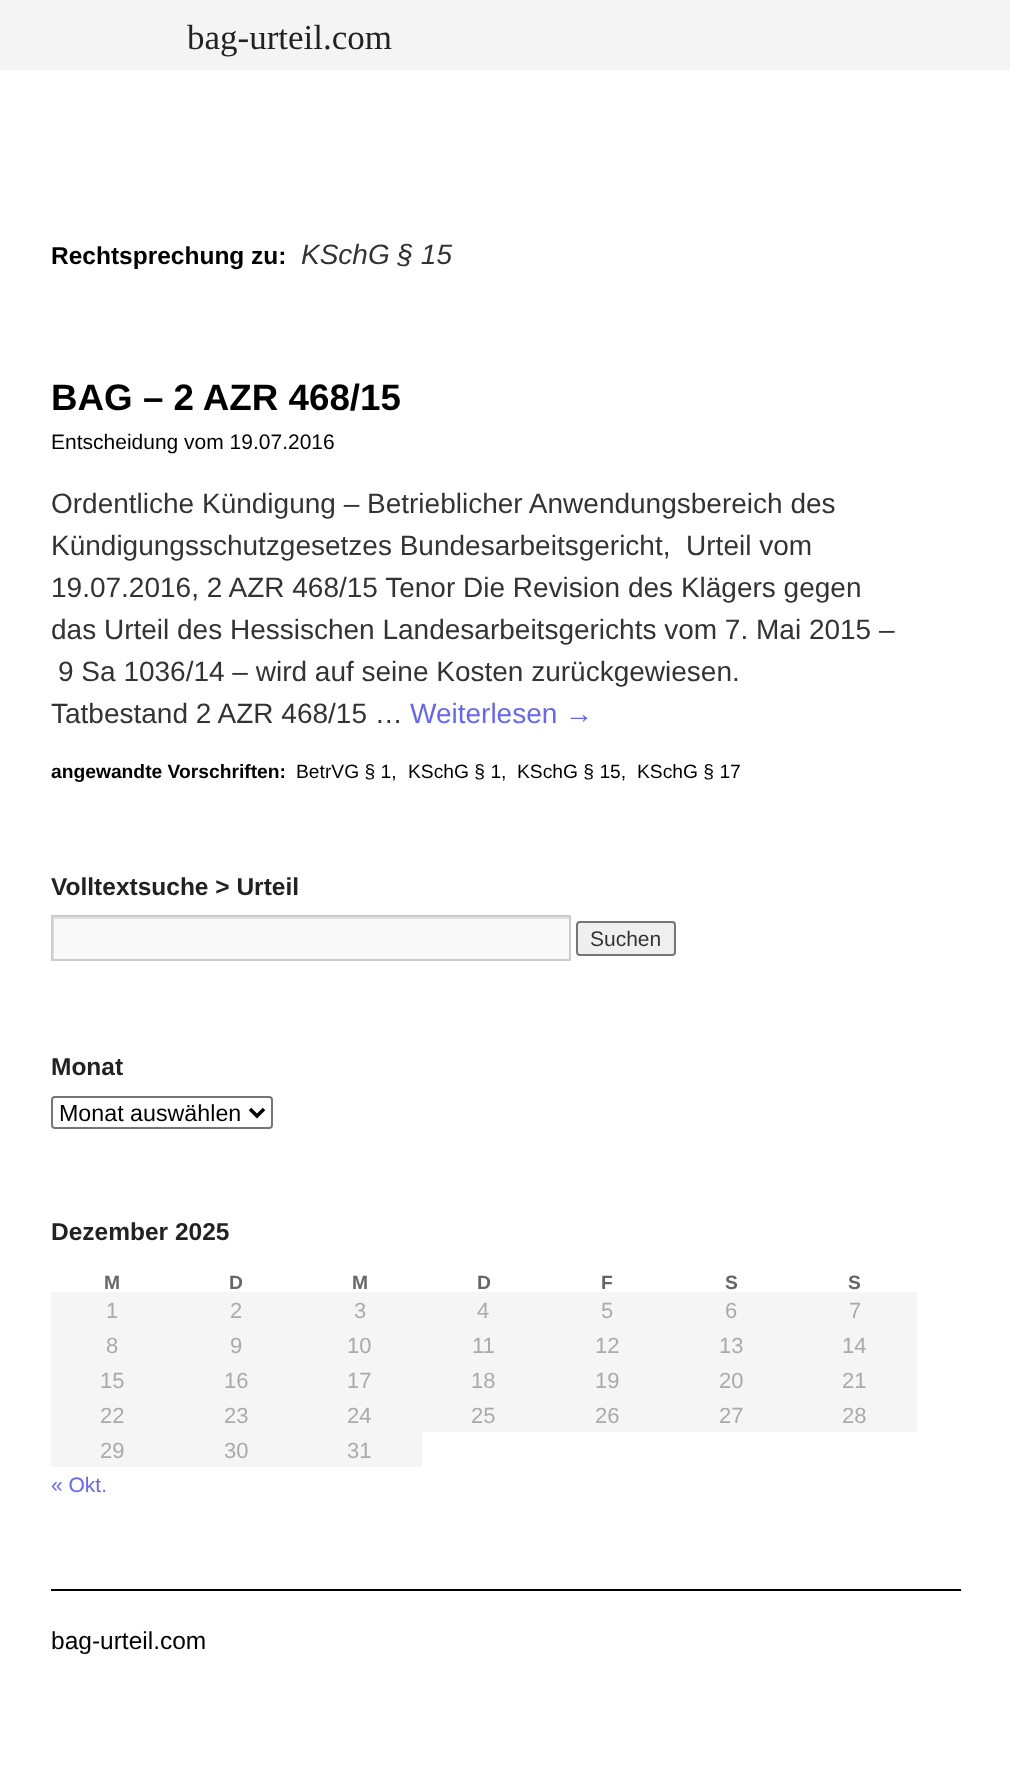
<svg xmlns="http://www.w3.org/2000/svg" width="1010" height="1783">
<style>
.a{font:35px Liberation Serif;fill:#222}
.b{font:bold 24.5px Liberation Sans;fill:#000}
.c{font:italic 28px Liberation Sans;fill:#333}
.d{font:bold 36.75px Liberation Sans;fill:#000}
.e{font:21px Liberation Sans;fill:#000}
.f{font:28px Liberation Sans;fill:#333}
.g{font:28px Liberation Sans;fill:#66f}
.h{font:bold 19.25px Liberation Sans;fill:#000}
.i{font:19.25px Liberation Sans;fill:#000}
.j{font:bold 24.5px Liberation Sans;fill:#222}
.k{font:21px Liberation Sans;fill:#333}
.l{font:23.25px Liberation Sans;fill:#000}
.m{font:bold 19.25px Liberation Sans;fill:#666}
.n{font:22px Liberation Sans;fill:#aaa}
.o{font:21px Liberation Sans;fill:#66f}
.p{font:24.5px Liberation Sans;fill:#000}
</style>
<defs>
<clipPath id="clip1"><path d="M53 917h516v42H53z"/></clipPath>
</defs>
<rect width="100%" height="100%" fill="#fff"/>
<path fill="#f4f4f4" d="M0 0h1010v70H0z"/>
<path fill="#f9f9f9" d="M54 919h515v40H54z"/>
<g clip-path="url(#clip1)">
<path fill="#e0e0e0" fill-rule="evenodd" d="M-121 744h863v388h-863zm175 175h516v42h-516z"/>
</g>
<path fill="none" stroke="#ccc" stroke-width="2" d="M52 916h518v44H52z"/>
<rect fill="#efefef" stroke="#767676" stroke-width="2" x="577" y="922" width="98" height="33" rx="3"/>
<rect fill="none" stroke="#767676" stroke-width="2" x="52" y="1097" width="220" height="31" rx="3"/>
<path fill="none" stroke="#000" stroke-width="3.5" d="M250 1109l7 7l7-7"/>
<path fill="#f5f5f5" d="M51 1292h866v35H51z"/>
<path fill="#f5f5f5" d="M51 1327h866v35H51z"/>
<path fill="#f5f5f5" d="M51 1362h866v35H51z"/>
<path fill="#f5f5f5" d="M51 1397h866v35H51z"/>
<path fill="#f5f5f5" d="M51 1432h371v35H51z"/>
<path fill="#000" d="M51 1589h910v2H51z"/>
<text class="a" x="187" y="49">bag-urteil.com</text>
<text class="b" x="51" y="264">Rechtsprechung zu:</text>
<text class="c" x="301" y="264">KSchG § 15</text>
<text class="d" x="51" y="410">BAG – 2 AZR 468/15</text>
<text class="e" x="51" y="449">Entscheidung vom 19.07.2016</text>
<text class="f" x="51" y="513">Ordentliche Kündigung – Betrieblicher Anwendungsbereich des</text>
<text class="f" xml:space="preserve" x="51" y="555">Kündigungsschutzgesetzes Bundesarbeitsgericht,  Urteil vom</text>
<text class="f" x="51" y="597">19.07.2016, 2 AZR 468/15 Tenor Die Revision des Klägers gegen</text>
<text class="f" x="51" y="639">das Urteil des Hessischen Landesarbeitsgerichts vom 7. Mai 2015 –</text>
<text class="f" x="58" y="681">9 Sa 1036/14 – wird auf seine Kosten zurückgewiesen.</text>
<text class="f" x="51" y="723">Tatbestand 2 AZR 468/15 …</text>
<text class="g" x="410" y="723">Weiterlesen →</text>
<text class="h" x="51" y="778">angewandte Vorschriften:</text>
<text class="i" x="296" y="778">BetrVG § 1,</text>
<text class="i" x="408" y="778">KSchG § 1,</text>
<text class="i" x="517" y="778">KSchG § 15,</text>
<text class="i" x="637" y="778">KSchG § 17</text>
<text class="j" x="51" y="895">Volltextsuche &gt; Urteil</text>
<text class="k" x="590" y="946">Suchen</text>
<text class="j" x="51" y="1075">Monat</text>
<text class="l" x="59" y="1121">Monat auswählen</text>
<text class="j" x="51" y="1240">Dezember 2025</text>
<text class="m" x="104" y="1289">M</text>
<text class="m" x="229" y="1289">D</text>
<text class="m" x="352" y="1289">M</text>
<text class="m" x="477" y="1289">D</text>
<text class="m" x="601" y="1289">F</text>
<text class="m" x="725" y="1289">S</text>
<text class="m" x="848" y="1289">S</text>
<text class="n" x="106" y="1318">1</text>
<text class="n" x="230" y="1318">2</text>
<text class="n" x="354" y="1318">3</text>
<text class="n" x="477" y="1318">4</text>
<text class="n" x="601" y="1318">5</text>
<text class="n" x="725" y="1318">6</text>
<text class="n" x="849" y="1318">7</text>
<text class="n" x="106" y="1353">8</text>
<text class="n" x="230" y="1353">9</text>
<text class="n" x="347" y="1353">10</text>
<text class="n" x="472" y="1353">11</text>
<text class="n" x="595" y="1353">12</text>
<text class="n" x="719" y="1353">13</text>
<text class="n" x="842" y="1353">14</text>
<text class="n" x="100" y="1388">15</text>
<text class="n" x="224" y="1388">16</text>
<text class="n" x="347" y="1388">17</text>
<text class="n" x="471" y="1388">18</text>
<text class="n" x="595" y="1388">19</text>
<text class="n" x="719" y="1388">20</text>
<text class="n" x="842" y="1388">21</text>
<text class="n" x="100" y="1423">22</text>
<text class="n" x="224" y="1423">23</text>
<text class="n" x="347" y="1423">24</text>
<text class="n" x="471" y="1423">25</text>
<text class="n" x="595" y="1423">26</text>
<text class="n" x="719" y="1423">27</text>
<text class="n" x="842" y="1423">28</text>
<text class="n" x="100" y="1458">29</text>
<text class="n" x="224" y="1458">30</text>
<text class="n" x="347" y="1458">31</text>
<text class="o" x="51" y="1492">« Okt.</text>
<text class="p" x="51" y="1649">bag-urteil.com</text>
</svg>
